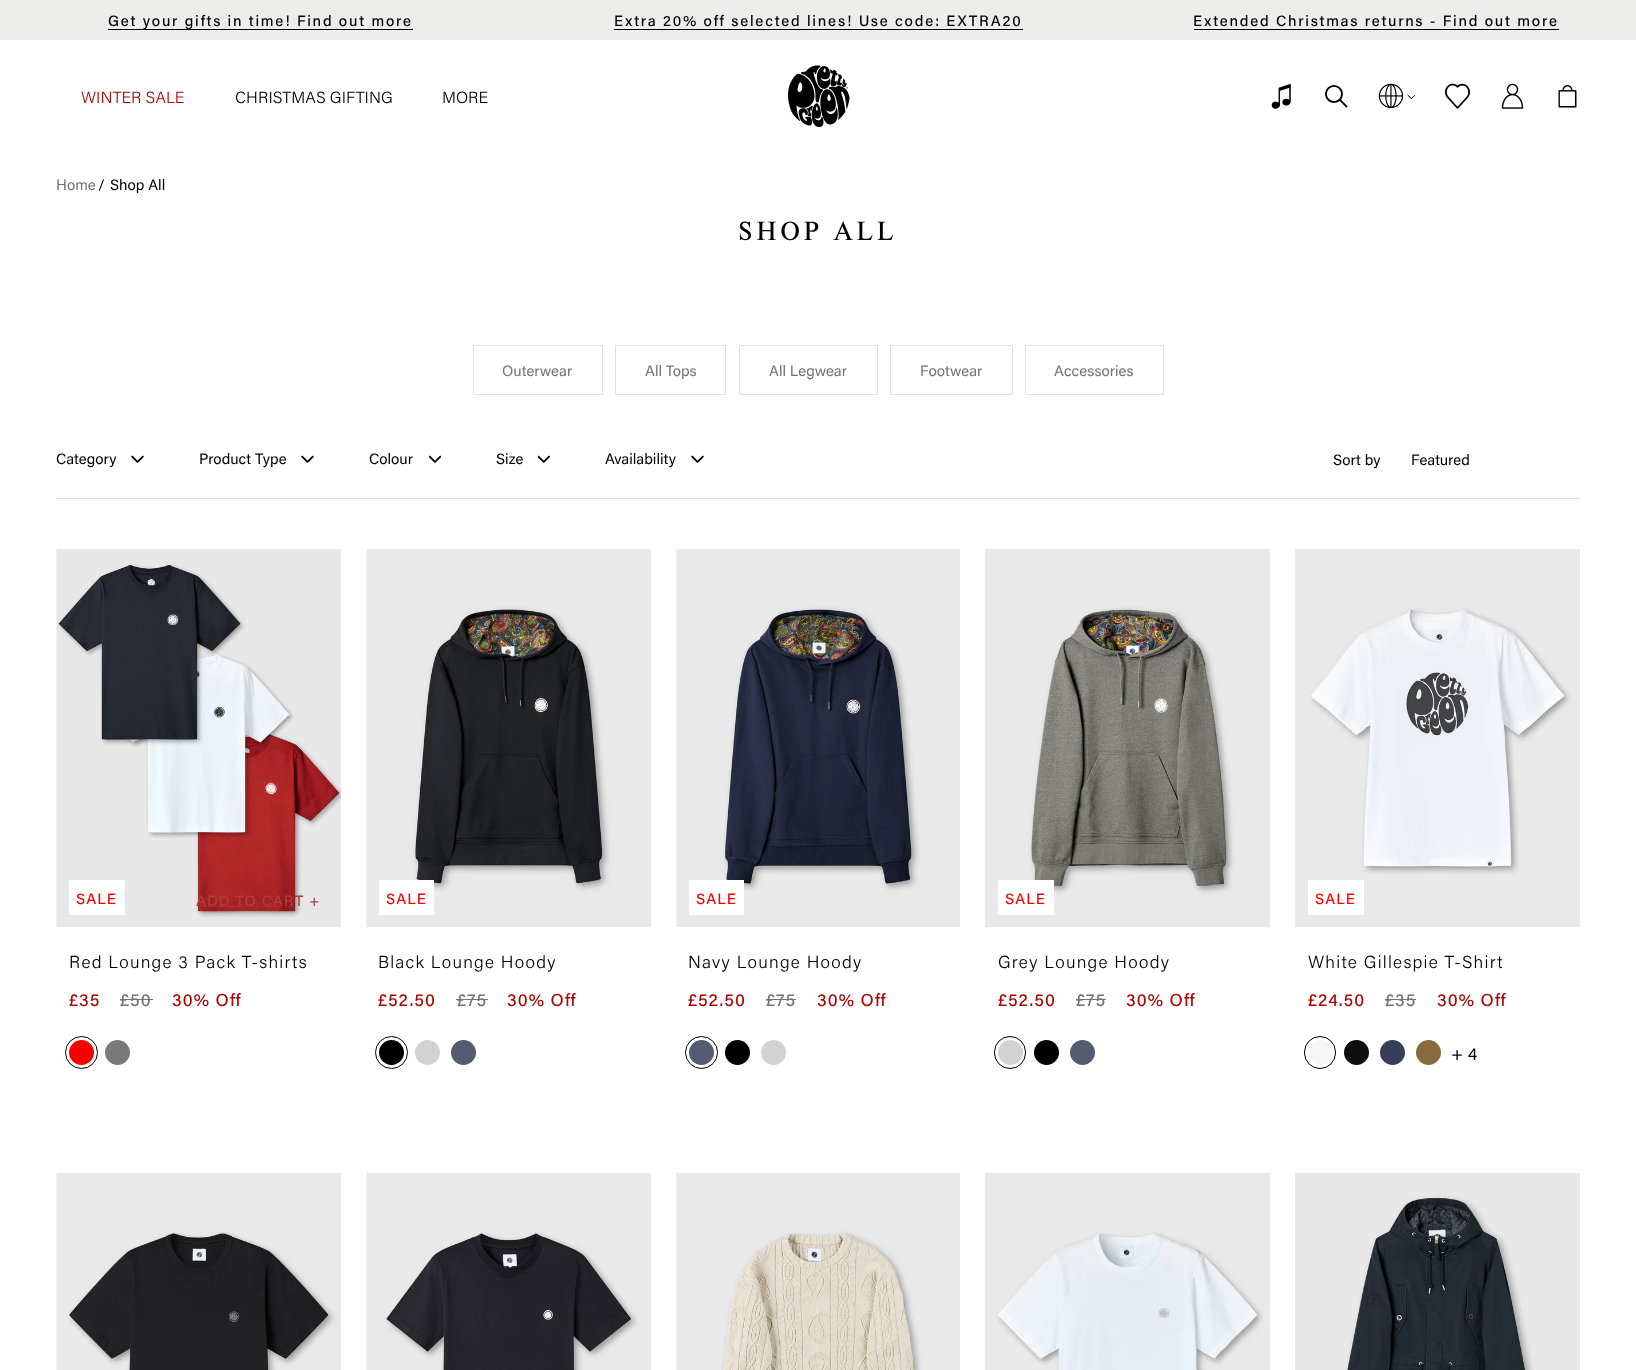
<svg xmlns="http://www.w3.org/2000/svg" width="1636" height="1370">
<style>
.a{font:500 15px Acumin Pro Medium;letter-spacing:1.75px;fill:#000}
.b{font:300 16.25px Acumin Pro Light;fill:#a90808}
.c{font:300 16.25px Acumin Pro Light;fill:#000}
.d{font:15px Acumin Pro;fill:#737373}
.e{font:15px Acumin Pro;fill:#000}
.f{font:27.5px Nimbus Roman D;letter-spacing:3.75px;fill:#000}
.g{font:500 15px Acumin Pro Medium;letter-spacing:1px;fill:#f00}
.h{font:500 15px Acumin Pro Medium;letter-spacing:1px;fill:#ae3e40}
.i{font:300 17.5px Acumin Pro Light;letter-spacing:1.2px;fill:#000}
.j{font:500 17.5px Acumin Pro Medium;letter-spacing:1px;fill:#a90808}
.k{font:500 17.5px Acumin Pro Medium;letter-spacing:1px;fill:#737373}
.l{font:17.5px Acumin Pro;fill:#000}
</style>
<rect width="100%" height="100%" fill="#fff"/>
<path fill="#ededeb" d="M0 0h1636v40H0z"/>
<path fill="#000" d="M108 29h305v1H108z"/>
<path fill="#000" d="M614 29h409v1H614z"/>
<path fill="#000" d="M1194 29h365v1H1194z"/>
<image href="1.png" x="788" y="65" width="62" height="63"/>
<image href="2.png" x="1271" y="83" width="20" height="26"/>
<image href="3.png" x="1325" y="85" width="23" height="23"/>
<image href="4.png" x="1378" y="83" width="26" height="26"/>
<path fill="none" stroke="#000" stroke-width="0.7" stroke-linecap="round" stroke-linejoin="round" d="M1414.5 95.5l-3 3zm-6.5 0l3.5 3z"/>
<image href="5.png" x="1445" y="83" width="25" height="26"/>
<image href="6.png" x="1501" y="83" width="23" height="26"/>
<image href="7.png" x="1558" y="85" width="19" height="23"/>
<path fill="none" stroke="#e2e1df" d="M473.5 345.5h129v49H473.5z"/>
<path fill="none" stroke="#e2e1df" d="M615.5 345.5h110v49H615.5z"/>
<path fill="none" stroke="#e2e1df" d="M739.5 345.5h138v49H739.5z"/>
<path fill="none" stroke="#e2e1df" d="M890.5 345.5h122v49H890.5z"/>
<path fill="none" stroke="#e2e1df" d="M1025.5 345.5h138v49H1025.5z"/>
<path fill="#e2e1df" d="M56 498h1524v1H56z"/>
<image href="8.png" x="131" y="455" width="13" height="8"/>
<image href="8.png" x="301" y="455" width="13" height="8"/>
<image href="9.png" x="429" y="455" width="12" height="8"/>
<image href="10.png" x="538" y="455" width="12" height="8"/>
<image href="8.png" x="691" y="455" width="13" height="8"/>
<image href="11.png" x="56" y="549" width="285" height="379"/>
<path fill="#fff" d="M69 880h56v35H69z"/>
<path fill="#737373" d="M120 999h33v1H120z"/>
<circle fill="#f80000" cx="81.5" cy="1052.5" r="12.5"/>
<circle fill="none" stroke="#000" cx="81.5" cy="1052.5" r="16"/>
<circle fill="#7a7a7a" cx="117.5" cy="1052.5" r="12.5"/>
<image href="12.png" x="366" y="549" width="285" height="379"/>
<path fill="#fff" d="M379 880h55v35H379z"/>
<path fill="#737373" d="M456 999h32v1H456z"/>
<circle fill="#000" cx="391.5" cy="1052.5" r="12.5"/>
<circle fill="none" stroke="#000" cx="391.5" cy="1052.5" r="16"/>
<circle fill="#d2d2d2" cx="427.5" cy="1052.5" r="12.5"/>
<circle fill="#555b71" cx="463.5" cy="1052.5" r="12.5"/>
<image href="13.png" x="676" y="549" width="284" height="379"/>
<path fill="#fff" d="M689 880h55v35H689z"/>
<path fill="#737373" d="M766 999h30v1H766z"/>
<circle fill="#555b71" cx="701.5" cy="1052.5" r="12.5"/>
<circle fill="none" stroke="#000" cx="701.5" cy="1052.5" r="16"/>
<circle fill="#000" cx="737.5" cy="1052.5" r="12.5"/>
<circle fill="#d2d2d2" cx="773.5" cy="1052.5" r="12.5"/>
<image href="14.png" x="985" y="549" width="285" height="379"/>
<path fill="#fff" d="M998 880h56v35H998z"/>
<path fill="#737373" d="M1076 999h30v1H1076z"/>
<circle fill="#d2d2d2" cx="1010.5" cy="1052.5" r="12.5"/>
<rect fill="none" stroke="#000" x="994.5" y="1036.5" width="31" height="32" rx="15.5"/>
<circle fill="#000" cx="1046.5" cy="1052.5" r="12.5"/>
<circle fill="#555b71" cx="1082.5" cy="1052.5" r="12.5"/>
<image href="15.png" x="1295" y="549" width="285" height="379"/>
<path fill="#fff" d="M1308 880h56v35H1308z"/>
<path fill="#737373" d="M1385 999h31v1H1385z"/>
<circle fill="#f7f5f6" cx="1320.5" cy="1052.5" r="12.5"/>
<rect fill="none" stroke="#000" x="1304.5" y="1036.5" width="31" height="32" rx="15.5"/>
<circle fill="#0d0d0d" cx="1356.5" cy="1052.5" r="12.5"/>
<circle fill="#373f58" cx="1392.5" cy="1052.5" r="12.5"/>
<circle fill="#8a6b3d" cx="1428.5" cy="1052.5" r="12.5"/>
<image href="16.png" x="56" y="1172" width="285" height="198"/>
<image href="17.png" x="366" y="1172" width="285" height="198"/>
<image href="18.png" x="676" y="1172" width="284" height="198"/>
<image href="19.png" x="985" y="1172" width="285" height="198"/>
<image href="20.png" x="1295" y="1172" width="285" height="198"/>
<text class="a" x="108" y="26">Get your gifts in time! Find out more</text>
<text class="a" x="614" y="26">Extra 20% off selected lines! Use code: EXTRA20</text>
<text class="a" x="1193" y="26">Extended Christmas returns - Find out more</text>
<text class="b" x="81" y="103">WINTER SALE</text>
<text class="c" x="235" y="103">CHRISTMAS GIFTING</text>
<text class="c" x="442" y="103">MORE</text>
<text class="d" x="56" y="190">Home</text>
<text class="e" x="98" y="190">/</text>
<text class="e" x="110" y="190">Shop All</text>
<text class="f" x="738" y="240">SHOP ALL</text>
<text class="d" x="502" y="376">Outerwear</text>
<text class="d" x="645" y="376">All Tops</text>
<text class="d" x="769" y="376">All Legwear</text>
<text class="d" x="920" y="376">Footwear</text>
<text class="d" x="1054" y="376">Accessories</text>
<text class="e" x="56" y="464">Category</text>
<text class="e" x="199" y="464">Product Type</text>
<text class="e" x="369" y="464">Colour</text>
<text class="e" x="496" y="464">Size</text>
<text class="e" x="605" y="464">Availability</text>
<text class="e" x="1333" y="465">Sort by</text>
<text class="e" x="1411" y="465">Featured</text>
<text class="g" x="76" y="904">SALE</text>
<text class="h" x="196" y="906">ADD TO CART +</text>
<text class="i" x="69" y="968">Red Lounge 3 Pack T-shirts</text>
<text class="j" x="69" y="1006">£35</text>
<text class="k" x="120" y="1006">£50</text>
<text class="j" x="172" y="1006">30% Off</text>
<text class="g" x="386" y="904">SALE</text>
<text class="i" x="378" y="968">Black Lounge Hoody</text>
<text class="j" x="378" y="1006">£52.50</text>
<text class="k" x="457" y="1006">£75</text>
<text class="j" x="507" y="1006">30% Off</text>
<text class="g" x="696" y="904">SALE</text>
<text class="i" x="688" y="968">Navy Lounge Hoody</text>
<text class="j" x="688" y="1006">£52.50</text>
<text class="k" x="766" y="1006">£75</text>
<text class="j" x="817" y="1006">30% Off</text>
<text class="g" x="1005" y="904">SALE</text>
<text class="i" x="998" y="968">Grey Lounge Hoody</text>
<text class="j" x="998" y="1006">£52.50</text>
<text class="k" x="1076" y="1006">£75</text>
<text class="j" x="1126" y="1006">30% Off</text>
<text class="g" x="1315" y="904">SALE</text>
<text class="i" x="1308" y="968">White Gillespie T-Shirt</text>
<text class="j" x="1308" y="1006">£24.50</text>
<text class="k" x="1385" y="1006">£35</text>
<text class="j" x="1437" y="1006">30% Off</text>
<text class="l" x="1451" y="1060">+ 4</text>
</svg>
